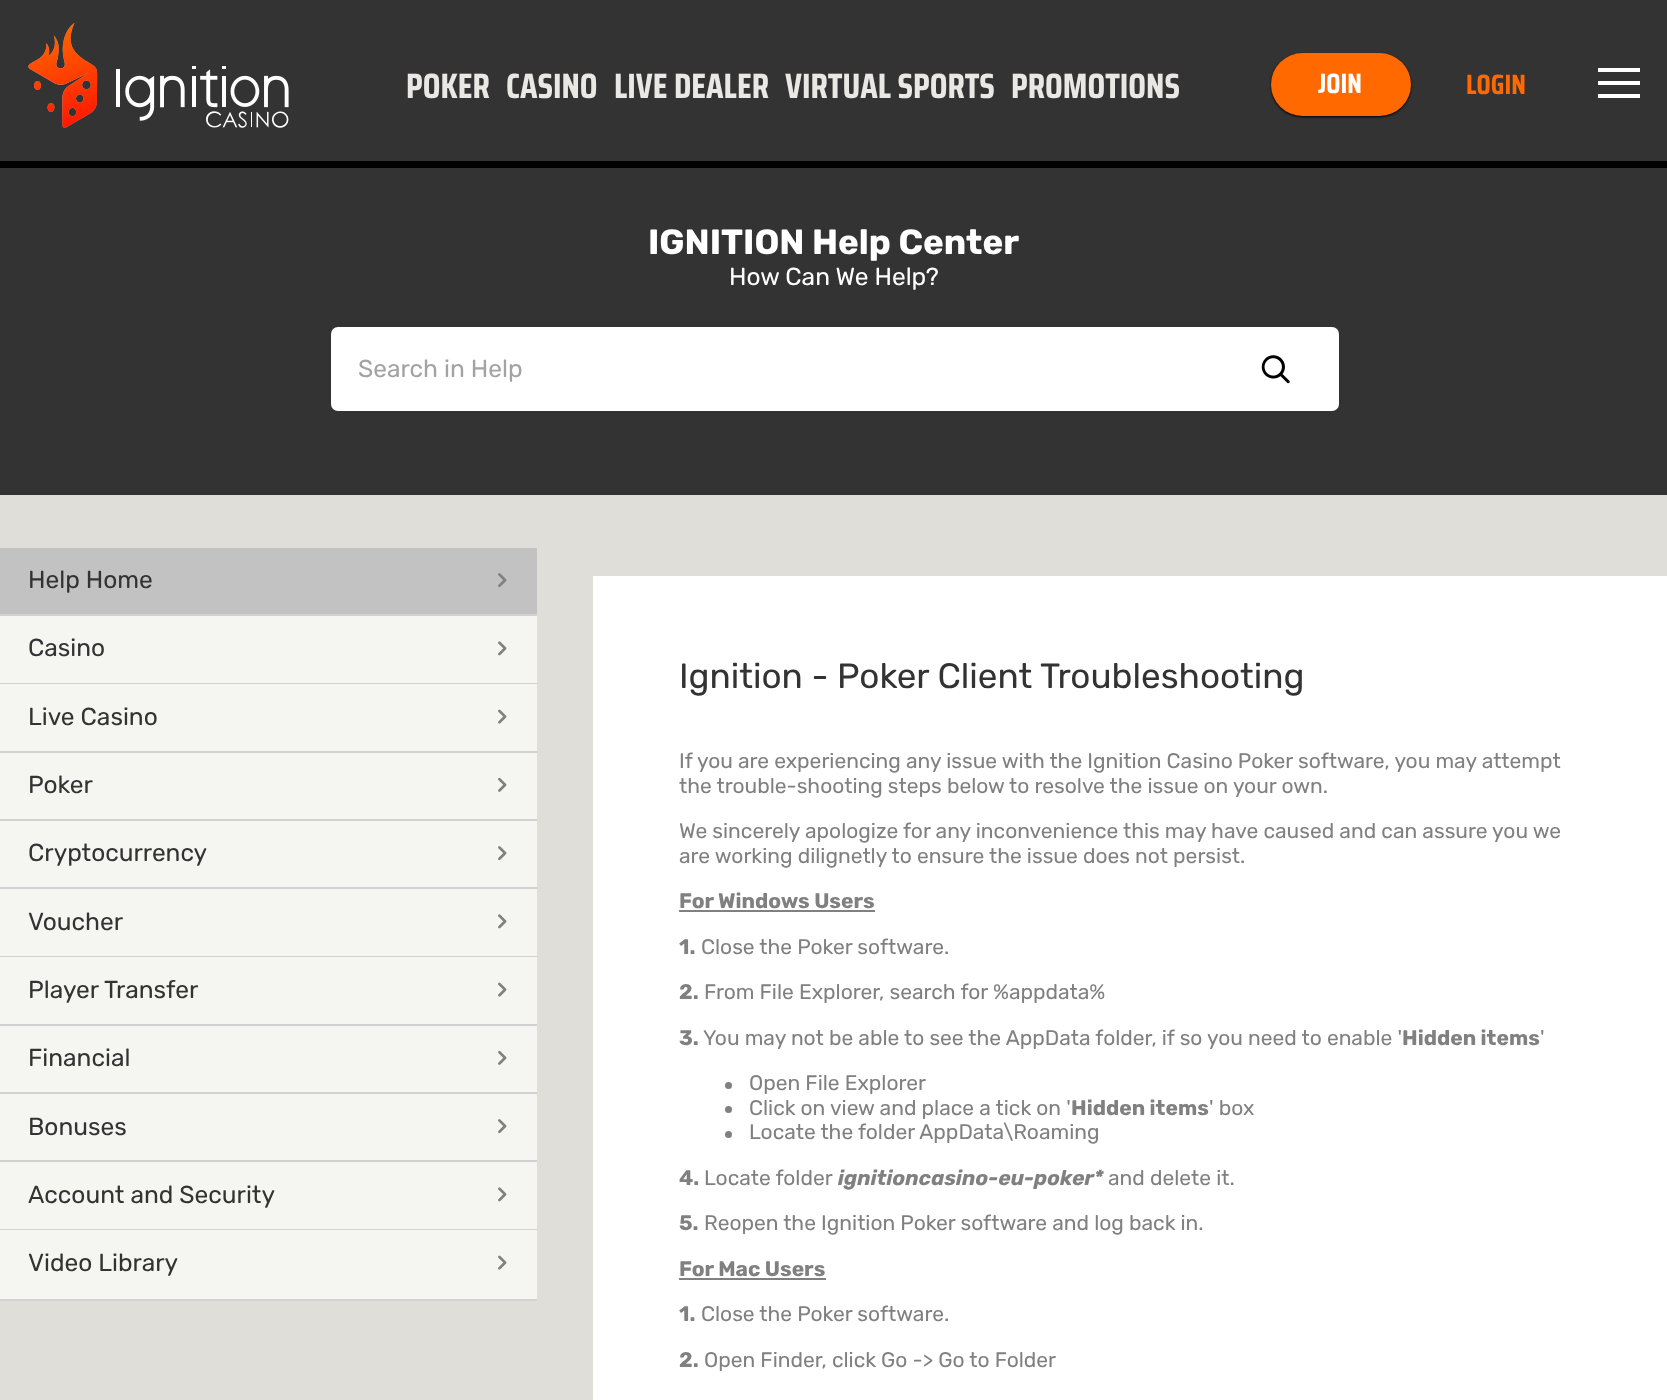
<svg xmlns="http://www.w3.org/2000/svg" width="1667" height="1400">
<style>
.a{font:bold 35.1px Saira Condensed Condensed;fill:#e9e8e4}
.b{font:bold 28px Saira Condensed Condensed;fill:#fff}
.c{font:bold 28px Saira Condensed Condensed;fill:#ff6900}
.d{font:bold 35px Rubik;fill:#fff}
.e{font:24.5px Rubik;fill:#fff}
.f{font:24.5px Rubik;fill:#a3a3a3}
.g{font:24.5px Rubik;fill:#333}
.h{font:35.1px Rubik;fill:#333}
.i{font:21px Rubik;fill:#808080}
.j{font:bold 21px Rubik;fill:#808080}
.k{font:italic bold 21px Rubik;fill:#808080}
</style>
<rect width="100%" height="100%" fill="#e0ded9"/>
<path fill="#333" d="M0 0h1667v161H0z"/>
<path fill="#000" d="M0 161h1667v7H0z"/>
<image href="1.png" x="28" y="23" width="261" height="105"/>
<rect fill="#000" filter="blur(1px)" x="1271" y="54" width="140" height="63" rx="31.5"/>
<rect fill="#ff6900" x="1271" y="53" width="140" height="63" rx="31.5"/>
<path fill="#fff" d="M1598 81h42v4h-42zm0 13h42v4h-42zm0-26h42v4h-42z"/>
<path fill="#333" d="M0 168h1667v327H0z"/>
<rect fill="#fff" x="331" y="327" width="1008" height="84" rx="7"/>
<image href="2.png" x="1261" y="355" width="29" height="29"/>
<path fill="#c2c2c2" d="M0 548h537v66H0z"/>
<path fill="#d1d1d1" d="M0 614h537v2H0z"/>
<image href="3.png" x="498" y="573" width="9" height="15"/>
<path fill="#f5f5f2" d="M0 616h537v67H0z"/>
<path fill="#d1d1d1" d="M0 683h537v1H0z"/>
<image href="4.png" x="498" y="641" width="9" height="15"/>
<path fill="#f5f5f2" d="M0 684h537v67H0z"/>
<path fill="#d1d1d1" d="M0 751h537v2H0z"/>
<image href="5.png" x="498" y="709" width="9" height="15"/>
<path fill="#f5f5f2" d="M0 753h537v66H0z"/>
<path fill="#d1d1d1" d="M0 819h537v2H0z"/>
<image href="6.png" x="498" y="777" width="9" height="15"/>
<path fill="#f5f5f2" d="M0 821h537v66H0z"/>
<path fill="#d1d1d1" d="M0 887h537v2H0z"/>
<image href="7.png" x="498" y="846" width="9" height="15"/>
<path fill="#f5f5f2" d="M0 889h537v67H0z"/>
<path fill="#d1d1d1" d="M0 956h537v1H0z"/>
<image href="4.png" x="498" y="914" width="9" height="15"/>
<path fill="#f5f5f2" d="M0 957h537v67H0z"/>
<path fill="#d1d1d1" d="M0 1024h537v2H0z"/>
<image href="5.png" x="498" y="982" width="9" height="15"/>
<path fill="#f5f5f2" d="M0 1026h537v66H0z"/>
<path fill="#d1d1d1" d="M0 1092h537v2H0z"/>
<image href="6.png" x="498" y="1050" width="9" height="15"/>
<path fill="#f5f5f2" d="M0 1094h537v66H0z"/>
<path fill="#d1d1d1" d="M0 1160h537v2H0z"/>
<image href="7.png" x="498" y="1119" width="9" height="15"/>
<path fill="#f5f5f2" d="M0 1162h537v67H0z"/>
<path fill="#d1d1d1" d="M0 1229h537v1H0z"/>
<image href="4.png" x="498" y="1187" width="9" height="15"/>
<path fill="#f5f5f2" d="M0 1230h537v69H0z"/>
<path fill="#d1d1d1" d="M0 1299h537v2H0z"/>
<image href="5.png" x="498" y="1255" width="9" height="15"/>
<path fill="#fff" d="M593 576h1074v824H593z"/>
<path fill="#808080" d="M679 910h196v2H679z"/>
<circle fill="#808080" cx="728.5" cy="1085.5" r="3.5"/>
<circle fill="#808080" cx="728.5" cy="1109.5" r="3.5"/>
<circle fill="#808080" cx="728.5" cy="1134.5" r="3.5"/>
<path fill="#808080" d="M679 1278h147v2H679z"/>
<text class="a" x="406" y="98">POKER</text>
<text class="a" x="506" y="98">CASINO</text>
<text class="a" x="614" y="98">LIVE DEALER</text>
<text class="a" x="785" y="98">VIRTUAL SPORTS</text>
<text class="a" x="1011" y="98">PROMOTIONS</text>
<text class="b" x="1318" y="93">JOIN</text>
<text class="c" x="1466" y="94">LOGIN</text>
<text class="d" x="648" y="254">IGNITION Help Center</text>
<text class="e" x="729" y="285">How Can We Help?</text>
<text class="f" x="358" y="377">Search in Help</text>
<text class="g" x="28" y="588">Help Home</text>
<text class="g" x="28" y="656">Casino</text>
<text class="g" x="28" y="725">Live Casino</text>
<text class="g" x="28" y="793">Poker</text>
<text class="g" x="28" y="861">Cryptocurrency</text>
<text class="g" x="28" y="930">Voucher</text>
<text class="g" x="28" y="998">Player Transfer</text>
<text class="g" x="28" y="1066">Financial</text>
<text class="g" x="28" y="1135">Bonuses</text>
<text class="g" x="28" y="1203">Account and Security</text>
<text class="g" x="28" y="1271">Video Library</text>
<text class="h" x="679" y="688">Ignition - Poker Client Troubleshooting</text>
<text class="i" x="679" y="768">If you are experiencing any issue with the Ignition Casino Poker software, you may attempt</text>
<text class="i" x="679" y="793">the trouble-shooting steps below to resolve the issue on your own.</text>
<text class="i" x="679" y="838">We sincerely apologize for any inconvenience this may have caused and can assure you we</text>
<text class="i" x="679" y="863">are working dilignetly to ensure the issue does not persist.</text>
<text class="j" x="679" y="908">For Windows Users</text>
<text class="j" x="679" y="954">1.</text>
<text class="i" x="701" y="954">Close the Poker software.</text>
<text class="j" x="679" y="999">2.</text>
<text class="i" x="704" y="999">From File Explorer, search for %appdata%</text>
<text class="j" x="679" y="1045">3.</text>
<text class="i" x="703" y="1045">You may not be able to see the AppData folder, if so you need to enable '</text>
<text class="j" x="1402" y="1045">Hidden items</text>
<text class="i" x="1540" y="1045">'</text>
<text class="i" x="749" y="1090">Open File Explorer</text>
<text class="i" x="749" y="1115">Click on view and place a tick on '</text>
<text class="j" x="1071" y="1115">Hidden items</text>
<text class="i" x="1209" y="1115">' box</text>
<text class="i" x="749" y="1139">Locate the folder AppData\Roaming</text>
<text class="j" x="679" y="1185">4.</text>
<text class="i" x="704" y="1185">Locate folder</text>
<text class="k" x="838" y="1185">ignitioncasino-eu-poker*</text>
<text class="i" x="1108" y="1185">and delete it.</text>
<text class="j" x="679" y="1230">5.</text>
<text class="i" x="704" y="1230">Reopen the Ignition Poker software and log back in.</text>
<text class="j" x="679" y="1276">For Mac Users</text>
<text class="j" x="679" y="1321">1.</text>
<text class="i" x="701" y="1321">Close the Poker software.</text>
<text class="j" x="679" y="1367">2.</text>
<text class="i" x="704" y="1367">Open Finder, click Go -&gt; Go to Folder</text>
</svg>
